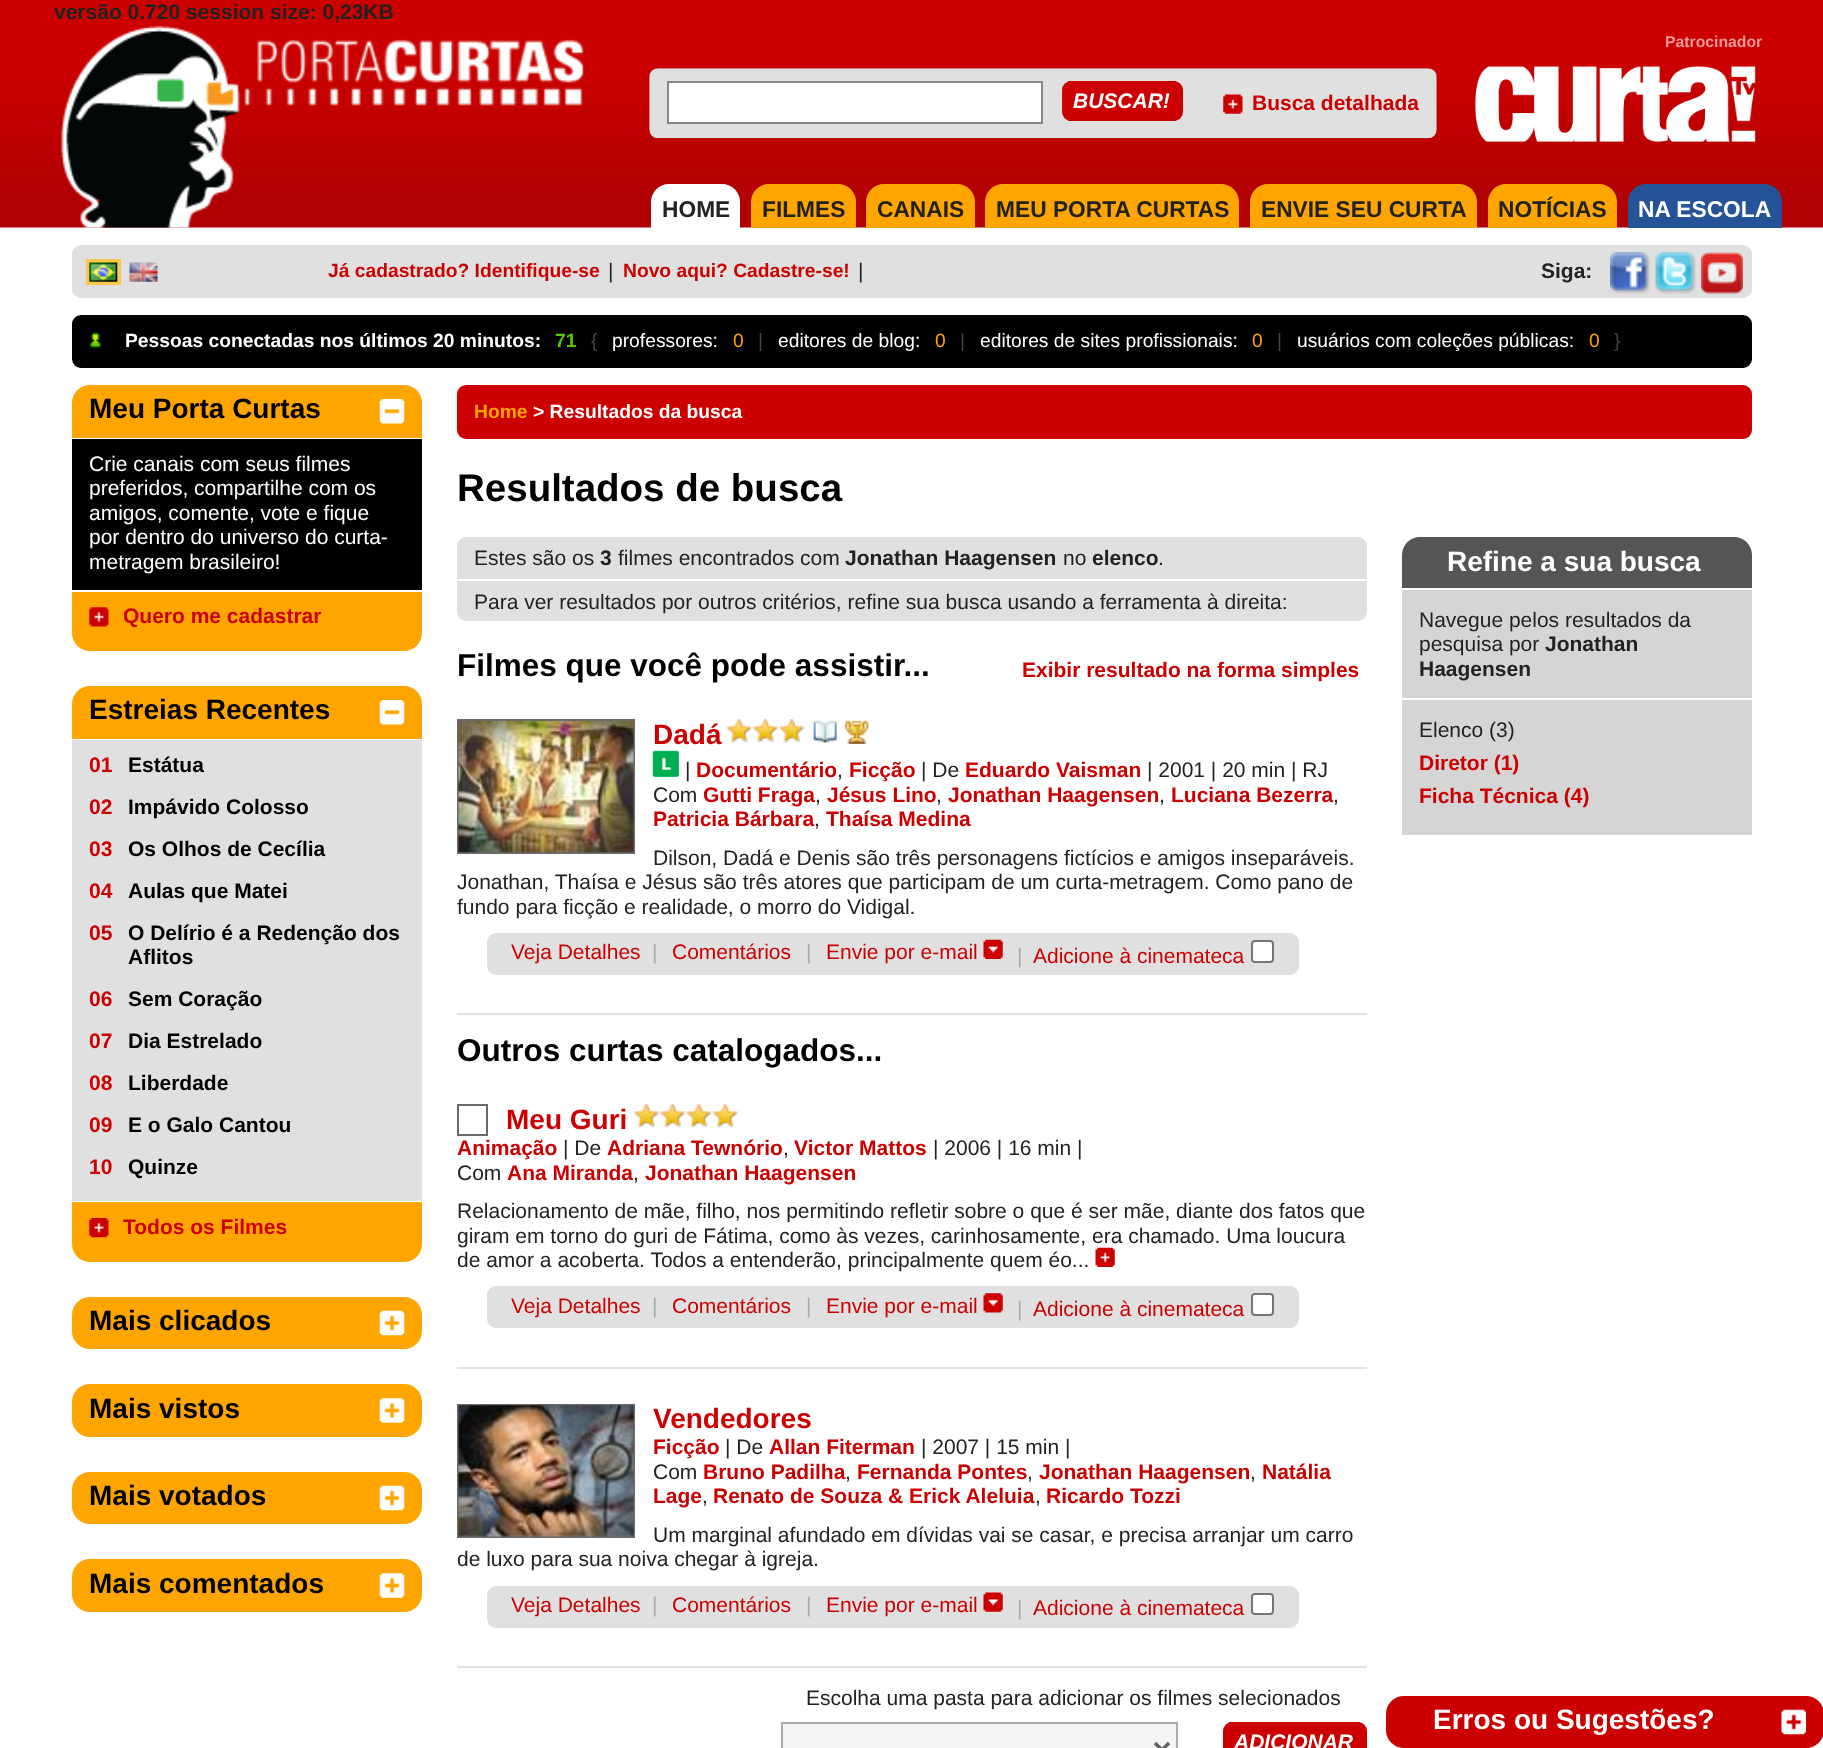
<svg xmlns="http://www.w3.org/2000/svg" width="1823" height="1748">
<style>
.a{font:bold 21px Liberation Sans;fill:#222}
.b{font:bold 15.75px Liberation Sans;fill:#ea9999}
.c{font:italic bold 21px Liberation Sans;fill:#fff}
.d{font:bold 21px Liberation Sans;fill:#c00}
.e{font:bold 22.75px Liberation Sans;fill:#222}
.f{font:bold 22.75px Liberation Sans;fill:#fff}
.g{font:bold 19.25px Liberation Sans;fill:#c00}
.h{font:21px Liberation Sans;fill:#222}
.i{font:bold 19.25px Liberation Sans;fill:#fff}
.j{font:bold 19.25px Liberation Sans;fill:#55c800}
.k{font:19.25px Liberation Sans;fill:#444}
.l{font:19.25px Liberation Sans;fill:#fff}
.m{font:19.25px Liberation Sans;fill:#ffa500}
.n{font:bold 28px Liberation Sans;fill:#000}
.o{font:21px Liberation Sans;fill:#fff}
.p{font:bold 21px Liberation Sans;fill:#000}
.q{font:bold 19.25px Liberation Sans;fill:#ffa500}
.r{font:bold 38.5px Liberation Sans;fill:#000}
.s{font:bold 31.5px Liberation Sans;fill:#000}
.t{font:bold 28px Liberation Sans;fill:#c00}
.u{font:21px Liberation Sans;fill:#c00}
.v{font:21px Liberation Sans;fill:#aaa}
.w{font:bold 28px Liberation Sans;fill:#fff}
</style>
<rect width="100%" height="100%" fill="#fff"/>
<image href="1.png" x="0" y="0" width="1823" height="228"/>
<image href="2.png" x="60" y="25" width="524" height="203"/>
<image href="3.png" x="1475" y="66" width="281" height="76"/>
<image href="4.png" x="649" y="68" width="788" height="71"/>
<path fill="#fff" stroke="#888" stroke-width="2" d="M668 82h374v41H668z"/>
<rect fill="#c00" x="1062" y="81" width="121" height="40" rx="9"/>
<path fill="#c00" d="M1068 81h108v40H1068z"/>
<image href="5.png" x="1223" y="94" width="20" height="20"/>
<path fill="#fff" d="M669 184h53c10 0 18 8 18 18v26h-89v-26c0-10 8-18 18-18z"/>
<path fill="#ffa500" d="M769 184h69c10 0 18 8 18 18v26h-105v-26c0-10 8-18 18-18z"/>
<path fill="#ffa500" d="M884 184h73c10 0 18 8 18 18v26h-109v-26c0-10 8-18 18-18z"/>
<path fill="#ffa500" d="M1003 184h218c10 0 18 8 18 18v26h-254v-26c0-10 8-18 18-18z"/>
<path fill="#ffa500" d="M1268 184h191c10 0 18 8 18 18v26h-227v-26c0-10 8-18 18-18z"/>
<path fill="#ffa500" d="M1506 184h93c10 0 18 8 18 18v26h-129v-26c0-10 8-18 18-18z"/>
<path fill="#255398" d="M1646 184h118c10 0 18 8 18 18v26h-154v-26c0-10 8-18 18-18z"/>
<rect fill="#e0e0e0" x="72" y="245" width="1680" height="53" rx="9"/>
<path fill="none" stroke="#fdc74f" stroke-width="4" d="M88 261h31v22H88z"/>
<image href="6.png" x="89" y="262" width="29" height="20"/>
<image href="7.png" x="129" y="262" width="29" height="20"/>
<image href="8.png" x="1610" y="252" width="40" height="42"/>
<image href="9.png" x="1655" y="252" width="41" height="42"/>
<image href="10.png" x="1701" y="252" width="42" height="42"/>
<rect fill="#000" x="72" y="315" width="1680" height="53" rx="9"/>
<image href="11.png" x="89" y="332" width="13" height="17"/>
<path fill="#ffa500" d="M90 385h314c10 0 18 8 18 18v35h-350v-35c0-10 8-18 18-18z"/>
<image href="12.png" x="379" y="399" width="26" height="25"/>
<path fill="#000" d="M72 439h350v151H72z"/>
<path fill="#ffa500" d="M72 592h350v41c0 10-8 18-18 18h-314c-10 0-18-8-18-18z"/>
<image href="13.png" x="89" y="607" width="20" height="20"/>
<path fill="#ffa500" d="M90 686h314c10 0 18 8 18 18v35h-350v-35c0-10 8-18 18-18z"/>
<image href="12.png" x="379" y="700" width="26" height="25"/>
<path fill="#e0e0e0" d="M72 740h350v461H72z"/>
<path fill="#ffa500" d="M72 1202h350v42c0 10-8 18-18 18h-314c-10 0-18-8-18-18z"/>
<image href="14.png" x="89" y="1218" width="20" height="20"/>
<rect fill="#ffa500" x="72" y="1297" width="350" height="52" rx="18"/>
<image href="15.png" x="379" y="1310" width="26" height="26"/>
<rect fill="#ffa500" x="72" y="1384" width="350" height="53" rx="18"/>
<image href="16.png" x="379" y="1398" width="26" height="25"/>
<rect fill="#ffa500" x="72" y="1472" width="350" height="52" rx="18"/>
<image href="15.png" x="379" y="1485" width="26" height="26"/>
<rect fill="#ffa500" x="72" y="1559" width="350" height="53" rx="18"/>
<image href="16.png" x="379" y="1573" width="26" height="25"/>
<rect fill="#c00" x="457" y="385" width="1295" height="54" rx="9"/>
<rect fill="#e0e0e0" x="457" y="537" width="910" height="84" rx="9"/>
<path fill="#fff" d="M457 579h910v2H457z"/>
<path fill="#e1e1e1" d="M457 1013h910v2H457z"/>
<path fill="none" stroke="#6b6b6b" stroke-width="2" d="M458 720h176v133H458z"/>
<image href="17.png" x="458" y="721" width="176" height="132"/>
<image href="18.png" x="726" y="719" width="27" height="24"/>
<image href="19.png" x="752" y="719" width="27" height="24"/>
<image href="20.png" x="778" y="719" width="27" height="24"/>
<image href="21.png" x="813" y="720" width="24" height="23"/>
<image href="22.png" x="844" y="720" width="25" height="24"/>
<image href="23.png" x="652" y="750" width="27" height="27"/>
<rect fill="#e0e0e0" x="487" y="933" width="812" height="42" rx="9"/>
<image href="24.png" x="983" y="939" width="20" height="20"/>
<rect fill="#fff" stroke="#767676" stroke-width="2" x="1252" y="941" width="21" height="21" rx="3"/>
<path fill="#e1e1e1" d="M457 1367h910v2H457z"/>
<path fill="none" stroke="#6b6b6b" stroke-width="2" d="M458 1105h29v30H458z"/>
<image href="25.png" x="633" y="1104" width="27" height="24"/>
<image href="26.png" x="659" y="1104" width="27" height="24"/>
<image href="27.png" x="686" y="1104" width="26" height="24"/>
<image href="18.png" x="712" y="1104" width="27" height="24"/>
<rect fill="#e0e0e0" x="487" y="1286" width="812" height="42" rx="9"/>
<image href="29.png" x="983" y="1293" width="20" height="20"/>
<rect fill="#fff" stroke="#767676" stroke-width="2" x="1252" y="1294" width="21" height="21" rx="3"/>
<path fill="#e1e1e1" d="M457 1666h910v2H457z"/>
<path fill="none" stroke="#6b6b6b" stroke-width="2" d="M458 1405h176v132H458z"/>
<image href="30.png" x="458" y="1405" width="176" height="132"/>
<rect fill="#e0e0e0" x="487" y="1586" width="812" height="42" rx="9"/>
<image href="31.png" x="983" y="1592" width="20" height="20"/>
<rect fill="#fff" stroke="#767676" stroke-width="2" x="1252" y="1594" width="21" height="20" rx="3"/>
<path fill="#f4f4f4" stroke="#acacac" stroke-width="2" d="M782 1723h395v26H782z"/>
<path fill="none" stroke="#646464" stroke-width="3.5" d="M1155 1743l7 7l7-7"/>
<rect fill="#c00" x="1223" y="1722" width="144" height="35" rx="9"/>
<path fill="#c00" d="M1229 1722h131v1H1229z"/>
<path fill="#555" d="M1420 537h314c10 0 18 8 18 18v33h-350v-33c0-10 8-18 18-18z"/>
<path fill="#d5d5d5" d="M1402 590h350v108H1402z"/>
<path fill="#d5d5d5" d="M1402 700h350v135H1402z"/>
<rect fill="#c00" x="1386" y="1696" width="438" height="52" rx="18"/>
<image href="32.png" x="1781" y="1709" width="25" height="26"/>
<text class="a" x="54" y="19">versão 0.720 session size: 0,23KB</text>
<text class="b" x="1665" y="47">Patrocinador</text>
<text class="c" x="1073" y="108">BUSCAR!</text>
<text class="d" x="1252" y="110">Busca detalhada</text>
<text class="e" x="662" y="217">HOME</text>
<text class="e" x="762" y="217">FILMES</text>
<text class="e" x="877" y="217">CANAIS</text>
<text class="e" x="996" y="217">MEU PORTA CURTAS</text>
<text class="e" x="1261" y="217">ENVIE SEU CURTA</text>
<text class="e" x="1498" y="217">NOTÍCIAS</text>
<text class="f" x="1638" y="217">NA ESCOLA</text>
<text class="g" x="328" y="277">Já cadastrado? Identifique-se</text>
<text class="h" x="608" y="278">|</text>
<text class="g" x="623" y="277">Novo aqui? Cadastre-se!</text>
<text class="h" x="858" y="278">|</text>
<text class="a" x="1541" y="278">Siga:</text>
<text class="i" x="125" y="347">Pessoas conectadas nos últimos 20 minutos:</text>
<text class="j" x="555" y="347">71</text>
<text class="k" x="591" y="347">{</text>
<text class="l" x="612" y="347">professores:</text>
<text class="m" x="733" y="347">0</text>
<text class="k" x="758" y="347">|</text>
<text class="l" x="778" y="347">editores de blog:</text>
<text class="m" x="935" y="347">0</text>
<text class="k" x="960" y="347">|</text>
<text class="l" x="980" y="347">editores de sites profissionais:</text>
<text class="m" x="1252" y="347">0</text>
<text class="k" x="1277" y="347">|</text>
<text class="l" x="1297" y="347">usuários com coleções públicas:</text>
<text class="m" x="1589" y="347">0</text>
<text class="k" x="1614" y="347">}</text>
<text class="n" x="89" y="418">Meu Porta Curtas</text>
<text class="o" x="89" y="471">Crie canais com seus filmes</text>
<text class="o" x="89" y="495">preferidos, compartilhe com os</text>
<text class="o" x="89" y="520">amigos, comente, vote e fique</text>
<text class="o" x="89" y="544">por dentro do universo do curta-</text>
<text class="o" x="89" y="569">metragem brasileiro!</text>
<text class="d" x="123" y="623">Quero me cadastrar</text>
<text class="n" x="89" y="719">Estreias Recentes</text>
<text class="d" x="89" y="772">01</text>
<text class="p" x="128" y="772">Estátua</text>
<text class="d" x="89" y="814">02</text>
<text class="p" x="128" y="814">Impávido Colosso</text>
<text class="d" x="89" y="856">03</text>
<text class="p" x="128" y="856">Os Olhos de Cecília</text>
<text class="d" x="89" y="898">04</text>
<text class="p" x="128" y="898">Aulas que Matei</text>
<text class="d" x="89" y="940">05</text>
<text class="p" x="128" y="940">O Delírio é a Redenção dos</text>
<text class="p" x="128" y="964">Aflitos</text>
<text class="d" x="89" y="1006">06</text>
<text class="p" x="128" y="1006">Sem Coração</text>
<text class="d" x="89" y="1048">07</text>
<text class="p" x="128" y="1048">Dia Estrelado</text>
<text class="d" x="89" y="1090">08</text>
<text class="p" x="128" y="1090">Liberdade</text>
<text class="d" x="89" y="1132">09</text>
<text class="p" x="128" y="1132">E o Galo Cantou</text>
<text class="d" x="89" y="1174">10</text>
<text class="p" x="128" y="1174">Quinze</text>
<text class="d" x="123" y="1234">Todos os Filmes</text>
<text class="n" x="89" y="1330">Mais clicados</text>
<text class="n" x="89" y="1418">Mais vistos</text>
<text class="n" x="89" y="1505">Mais votados</text>
<text class="n" x="89" y="1593">Mais comentados</text>
<text class="q" x="474" y="418">Home</text>
<text class="i" x="533" y="418">&gt; Resultados da busca</text>
<text class="r" x="457" y="501">Resultados de busca</text>
<text class="h" x="474" y="565">Estes são os</text>
<text class="a" x="600" y="565">3</text>
<text class="h" x="618" y="565">filmes encontrados com</text>
<text class="a" x="845" y="565">Jonathan Haagensen</text>
<text class="h" x="1063" y="565">no</text>
<text class="a" x="1092" y="565">elenco</text>
<text class="h" x="1158" y="565">.</text>
<text class="h" x="474" y="609">Para ver resultados por outros critérios, refine sua busca usando a ferramenta à direita:</text>
<text class="s" x="457" y="676">Filmes que você pode assistir...</text>
<text class="d" x="1022" y="677">Exibir resultado na forma simples</text>
<text class="t" x="653" y="744">Dadá</text>
<text class="h" x="685" y="777">|</text>
<text class="d" x="696" y="777">Documentário</text>
<text class="h" x="837" y="777">,</text>
<text class="d" x="849" y="777">Ficção</text>
<text class="h" x="921" y="777">| De</text>
<text class="d" x="965" y="777">Eduardo Vaisman</text>
<text class="h" x="1147" y="777">| 2001 | 20 min | RJ</text>
<text class="h" x="653" y="802">Com</text>
<text class="d" x="703" y="802">Gutti Fraga</text>
<text class="h" x="815" y="802">,</text>
<text class="d" x="827" y="802">Jésus Lino</text>
<text class="h" x="936" y="802">,</text>
<text class="d" x="948" y="802">Jonathan Haagensen</text>
<text class="h" x="1159" y="802">,</text>
<text class="d" x="1171" y="802">Luciana Bezerra</text>
<text class="h" x="1333" y="802">,</text>
<text class="d" x="653" y="826">Patricia Bárbara</text>
<text class="h" x="814" y="826">,</text>
<text class="d" x="826" y="826">Thaísa Medina</text>
<text class="h" x="653" y="865">Dilson, Dadá e Denis são três personagens fictícios e amigos inseparáveis.</text>
<text class="h" x="457" y="889">Jonathan, Thaísa e Jésus são três atores que participam de um curta-metragem. Como pano de</text>
<text class="h" x="457" y="914">fundo para ficção e realidade, o morro do Vidigal.</text>
<text class="u" x="511" y="959">Veja Detalhes</text>
<text class="v" x="652" y="959">|</text>
<text class="u" x="672" y="959">Comentários</text>
<text class="v" x="806" y="959">|</text>
<text class="u" x="826" y="959">Envie por e-mail</text>
<text class="v" x="1017" y="963">|</text>
<text class="u" x="1033" y="963">Adicione à cinemateca</text>
<text class="s" x="457" y="1061">Outros curtas catalogados...</text>
<text class="t" x="506" y="1129">Meu Guri</text>
<text class="d" x="457" y="1155">Animação</text>
<text class="h" x="563" y="1155">| De</text>
<text class="d" x="607" y="1155">Adriana Tewnório</text>
<text class="h" x="783" y="1155">,</text>
<text class="d" x="794" y="1155">Victor Mattos</text>
<text class="h" x="933" y="1155">| 2006 | 16 min |</text>
<text class="h" x="457" y="1180">Com</text>
<text class="d" x="507" y="1180">Ana Miranda</text>
<text class="h" x="633" y="1180">,</text>
<text class="d" x="645" y="1180">Jonathan Haagensen</text>
<text class="h" x="457" y="1218">Relacionamento de mãe, filho, nos permitindo refletir sobre o que é ser mãe, diante dos fatos que</text>
<text class="h" x="457" y="1243">giram em torno do guri de Fátima, como às vezes, carinhosamente, era chamado. Uma loucura</text>
<text class="h" x="457" y="1267">de amor a acoberta. Todos a entenderão, principalmente quem éo...</text>
<image href="28.png" x="1095" y="1247" width="20" height="20"/>
<text class="u" x="511" y="1313">Veja Detalhes</text>
<text class="v" x="652" y="1313">|</text>
<text class="u" x="672" y="1313">Comentários</text>
<text class="v" x="806" y="1313">|</text>
<text class="u" x="826" y="1313">Envie por e-mail</text>
<text class="v" x="1017" y="1316">|</text>
<text class="u" x="1033" y="1316">Adicione à cinemateca</text>
<text class="t" x="653" y="1428">Vendedores</text>
<text class="d" x="653" y="1454">Ficção</text>
<text class="h" x="725" y="1454">| De</text>
<text class="d" x="769" y="1454">Allan Fiterman</text>
<text class="h" x="921" y="1454">| 2007 | 15 min |</text>
<text class="h" x="653" y="1479">Com</text>
<text class="d" x="703" y="1479">Bruno Padilha</text>
<text class="h" x="845" y="1479">,</text>
<text class="d" x="857" y="1479">Fernanda Pontes</text>
<text class="h" x="1027" y="1479">,</text>
<text class="d" x="1039" y="1479">Jonathan Haagensen</text>
<text class="h" x="1250" y="1479">,</text>
<text class="d" x="1262" y="1479">Natália</text>
<text class="d" x="653" y="1503">Lage</text>
<text class="h" x="702" y="1503">,</text>
<text class="d" x="713" y="1503">Renato de Souza &amp; Erick Aleluia</text>
<text class="h" x="1035" y="1503">,</text>
<text class="d" x="1046" y="1503">Ricardo Tozzi</text>
<text class="h" x="653" y="1542">Um marginal afundado em dívidas vai se casar, e precisa arranjar um carro</text>
<text class="h" x="457" y="1566">de luxo para sua noiva chegar à igreja.</text>
<text class="u" x="511" y="1612">Veja Detalhes</text>
<text class="v" x="652" y="1612">|</text>
<text class="u" x="672" y="1612">Comentários</text>
<text class="v" x="806" y="1612">|</text>
<text class="u" x="826" y="1612">Envie por e-mail</text>
<text class="v" x="1017" y="1615">|</text>
<text class="u" x="1033" y="1615">Adicione à cinemateca</text>
<text class="h" x="806" y="1705">Escolha uma pasta para adicionar os filmes selecionados</text>
<text class="c" x="1234" y="1749">ADICIONAR</text>
<text class="w" x="1447" y="571">Refine a sua busca</text>
<text class="h" x="1419" y="627">Navegue pelos resultados da</text>
<text class="h" x="1419" y="651">pesquisa por</text>
<text class="a" x="1545" y="651">Jonathan</text>
<text class="a" x="1419" y="676">Haagensen</text>
<text class="h" x="1419" y="737">Elenco (3)</text>
<text class="d" x="1419" y="770">Diretor (1)</text>
<text class="d" x="1419" y="803">Ficha Técnica (4)</text>
<text class="w" x="1433" y="1729">Erros ou Sugestões?</text>
</svg>
